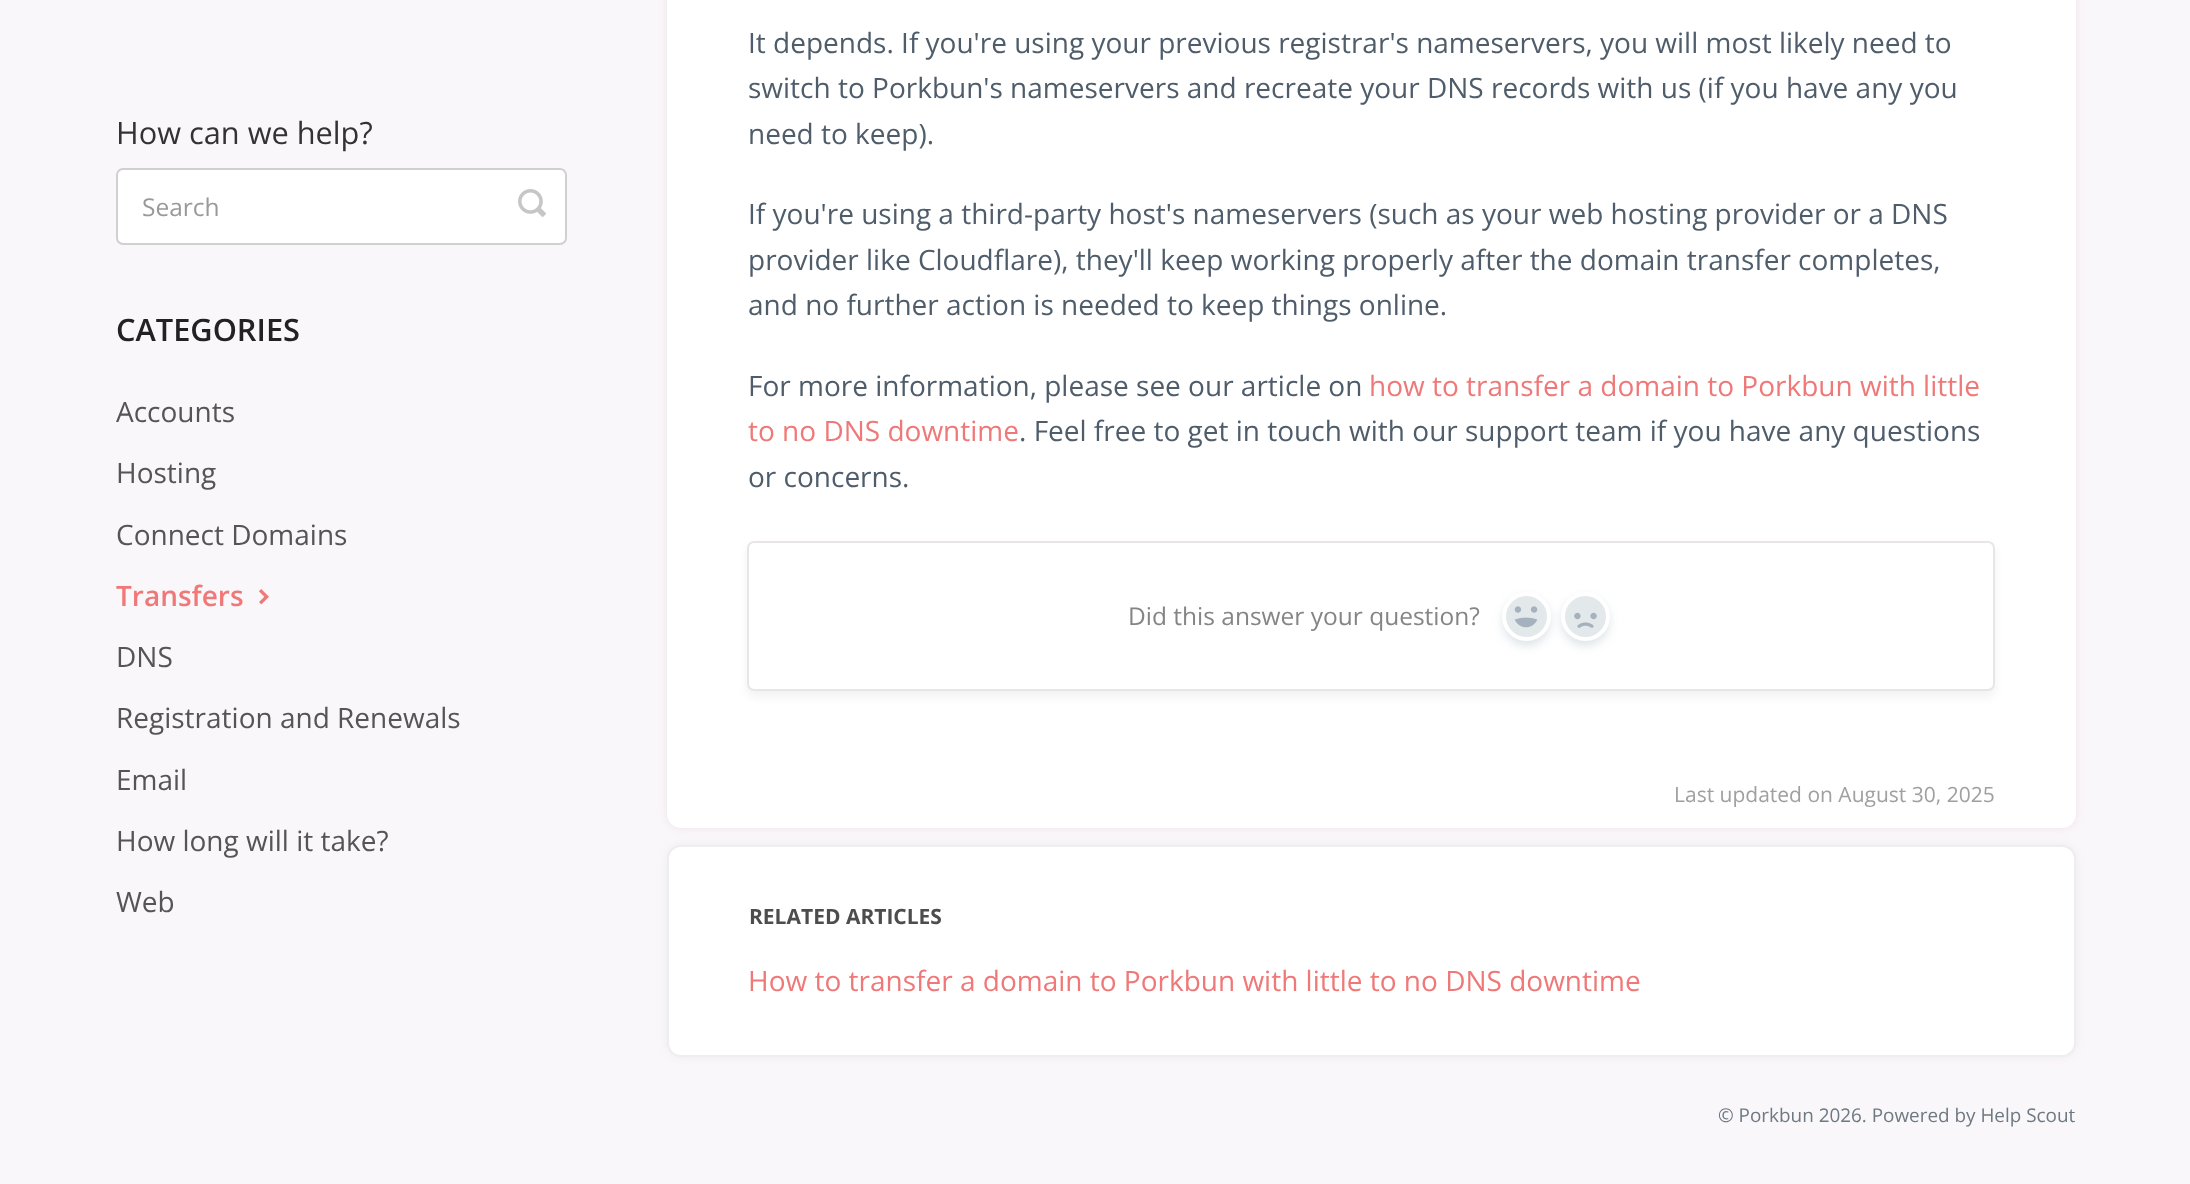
<svg xmlns="http://www.w3.org/2000/svg" width="2190" height="1184">
<style>
.a{font:30.75px Open Sans;fill:#333}
.b{font:24.5px Open Sans;fill:#999}
.c{font:600 30.75px Open Sans;fill:#222}
.d{font:28px Open Sans;fill:#555}
.e{font:600 28px Open Sans;fill:#ef7878}
.f{font:28px Open Sans;fill:#4f5d6b}
.g{font:28px Open Sans;fill:#ef7878}
.h{font:24.5px Open Sans;fill:#858585}
.i{font:21px Open Sans;fill:#a0a0a0}
.j{font:bold 21px Open Sans;fill:#4d4d4d}
.k{font:18.9px Open Sans;fill:#6d7983}
</style>
<rect width="100%" height="100%" fill="#faf7fa"/>
<rect fill="#fff" stroke="#d0d0d0" stroke-width="2" x="117" y="169" width="449" height="75" rx="6"/>
<image href="1.png" x="518" y="189" width="28" height="28"/>
<image href="2.png" x="259" y="589" width="10" height="16"/>
<rect fill="#96787826" filter="blur(5px)" x="667" y="-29" width="1409" height="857" rx="14"/>
<rect fill="#fff" x="667" y="-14" width="1409" height="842" rx="14"/>
<rect fill="#0000000d" filter="blur(5px)" x="747" y="546" width="1248" height="151" rx="7"/>
<rect fill="#fff" stroke="#e9e5e5" stroke-width="2" x="748" y="542" width="1246" height="148" rx="6"/>
<rect fill="#c1cbd480" filter="blur(5px)" x="1502" y="597" width="49" height="49" rx="24.5"/>
<circle fill="#e3e8eb" stroke="#fff" stroke-width="4" cx="1526.5" cy="616.5" r="22.5"/>
<image href="3.png" x="1514" y="606" width="24" height="22"/>
<rect fill="#c1cbd480" filter="blur(5px)" x="1561" y="597" width="49" height="49" rx="24.5"/>
<circle fill="#e3e8eb" stroke="#fff" stroke-width="4" cx="1585.5" cy="616.5" r="22.5"/>
<image href="4.png" x="1574" y="612" width="23" height="16"/>
<rect fill="#9678781a" filter="blur(5px)" x="667" y="845" width="1409" height="212" rx="14"/>
<rect fill="#fff" stroke="#eceef0" stroke-width="2" x="668" y="846" width="1407" height="210" rx="13"/>
<text class="a" x="116" y="144">How can we help?</text>
<text class="b" x="142" y="216">Search</text>
<text class="c" x="116" y="341">CATEGORIES</text>
<text class="d" x="116" y="422">Accounts</text>
<text class="d" x="116" y="483">Hosting</text>
<text class="d" x="116" y="545">Connect Domains</text>
<text class="e" x="116" y="606">Transfers</text>
<text class="d" x="116" y="667">DNS</text>
<text class="d" x="116" y="728">Registration and Renewals</text>
<text class="d" x="116" y="790">Email</text>
<text class="d" x="116" y="851">How long will it take?</text>
<text class="d" x="116" y="912">Web</text>
<text class="f" x="748" y="53">It depends. If you're using your previous registrar's nameservers, you will most likely need to</text>
<text class="f" x="748" y="98">switch to Porkbun's nameservers and recreate your DNS records with us (if you have any you</text>
<text class="f" x="748" y="144">need to keep).</text>
<text class="f" x="748" y="224">If you're using a third-party host's nameservers (such as your web hosting provider or a DNS</text>
<text class="f" x="748" y="270">provider like Cloudflare), they'll keep working properly after the domain transfer completes,</text>
<text class="f" x="748" y="315">and no further action is needed to keep things online.</text>
<text class="f" x="748" y="396">For more information, please see our article on</text>
<text class="g" x="1369" y="396">how to transfer a domain to Porkbun with little</text>
<text class="g" x="748" y="441">to no DNS downtime</text>
<text class="f" x="1019" y="441">. Feel free to get in touch with our support team if you have any questions</text>
<text class="f" x="748" y="487">or concerns.</text>
<text class="h" x="1128" y="625">Did this answer your question?</text>
<text class="i" x="1674" y="802">Last updated on August 30, 2025</text>
<text class="j" x="749" y="924">RELATED ARTICLES</text>
<text class="g" x="748" y="991">How to transfer a domain to Porkbun with little to no DNS downtime</text>
<text class="k" x="1718" y="1122">© Porkbun 2026. Powered by Help Scout</text>
</svg>
